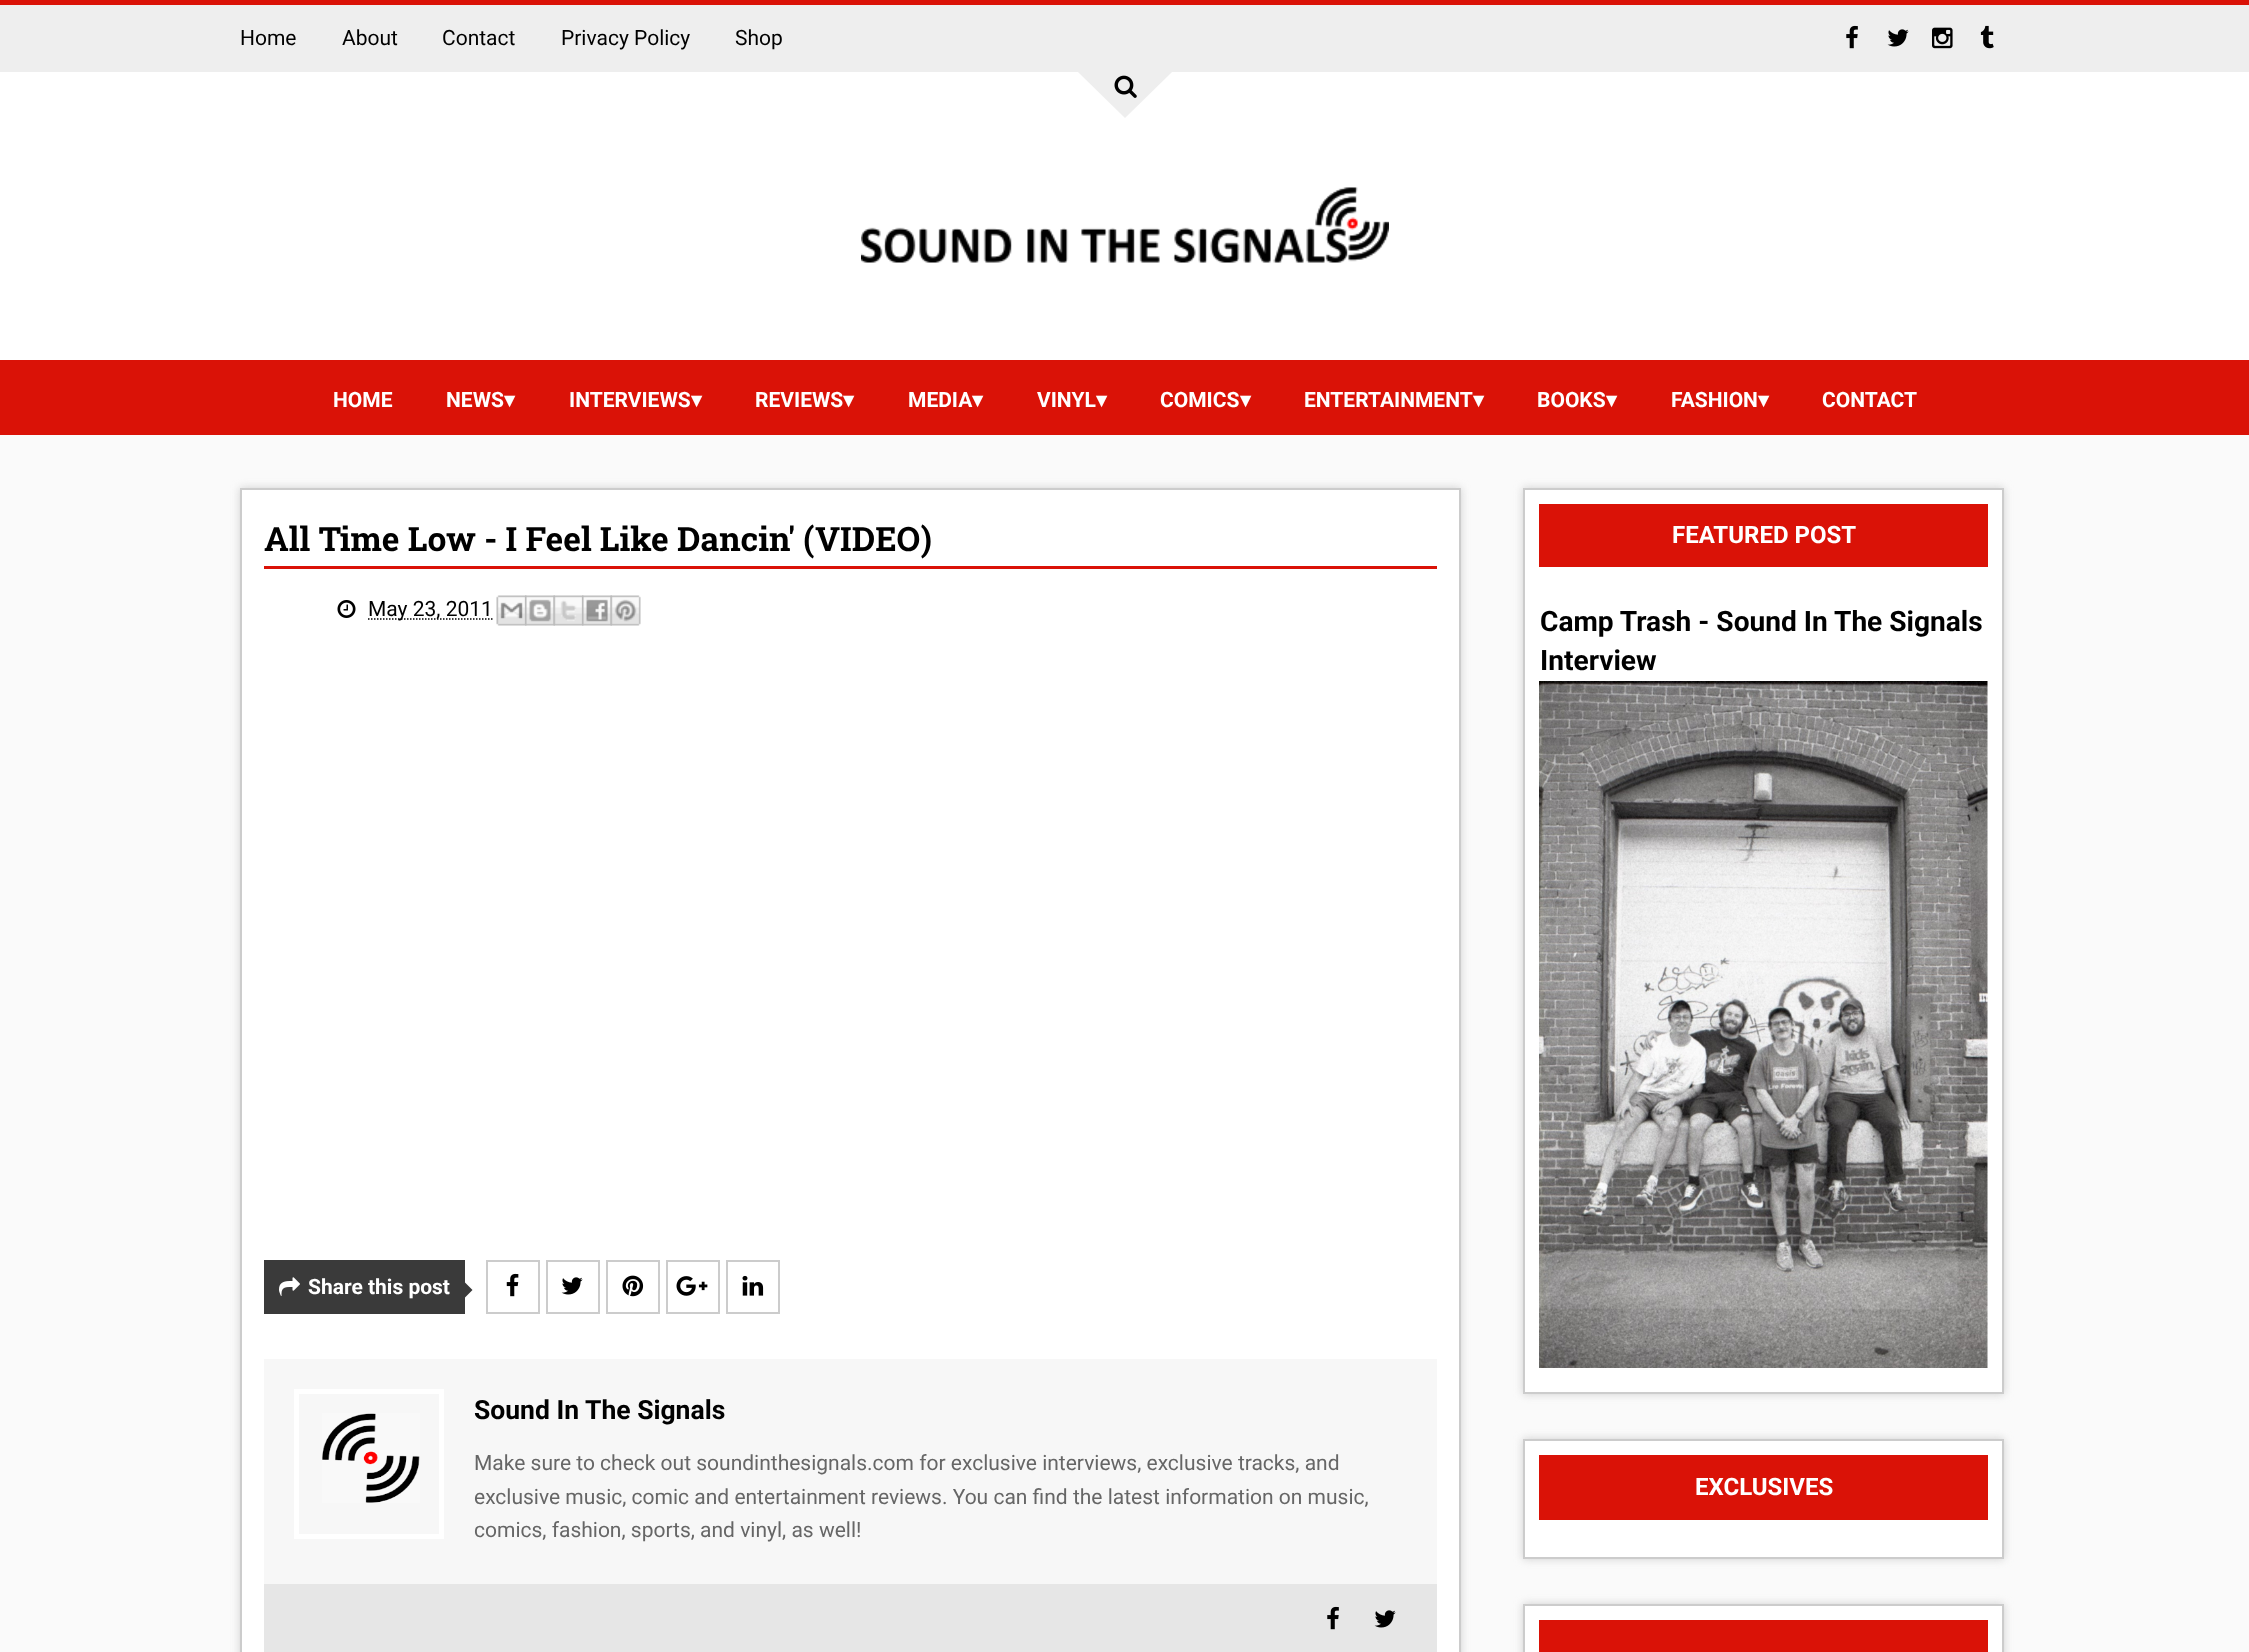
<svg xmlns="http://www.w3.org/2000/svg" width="2249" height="1652">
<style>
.a{font:21px Roboto;fill:#000}
.b{font:bold 21px Roboto;fill:#fff}
.c{font:bold 21px DejaVu Sans;fill:#fff}
.d{font:bold 33.6px Roboto Slab;fill:#000}
.e{font:bold 26.5px Roboto;fill:#000}
.f{font:21px Roboto;fill:#666}
.g{font:bold 24px Roboto;fill:#fff}
.h{font:bold 28.1px Roboto;fill:#000}
</style>
<rect width="100%" height="100%" fill="#fafafa"/>
<path fill="#fff" d="M0 72h2249v288H0z"/>
<path fill="#da1207" d="M0 0h2249v5H0z"/>
<path fill="#eee" d="M0 5h2249v67H0z"/>
<image href="1.png" x="1846" y="25" width="12" height="24"/>
<image href="2.png" x="1887" y="29" width="22" height="18"/>
<image href="3.png" x="1932" y="27" width="21" height="22"/>
<image href="4.png" x="1980" y="25" width="14" height="24"/>
<path fill="#eee" d="M1078 72h94l-47 46z"/>
<image href="5.png" x="1114" y="75" width="23" height="23"/>
<image href="6.png" x="861" y="187" width="528" height="76"/>
<path fill="#da1207" d="M0 360h2249v75H0z"/>
<path fill="#cfcfcf" filter="blur(4px)" d="M240 488h1221v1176H240z"/>
<path fill="#fff" stroke="#ccc" stroke-width="2" d="M241 489h1219v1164H241z"/>
<path fill="#da1207" d="M264 566h1173v3H264z"/>
<image href="7.png" x="337" y="600" width="19" height="18"/>
<path fill="none" stroke="#000" stroke-width="1.5" stroke-dasharray="1.5 1.5" d="M368 619h125"/>
<image href="8.png" x="496" y="595" width="31" height="31"/>
<image href="9.png" x="525" y="595" width="30" height="31"/>
<image href="10.png" x="553" y="595" width="31" height="31"/>
<image href="11.png" x="582" y="595" width="30" height="31"/>
<image href="12.png" x="610" y="595" width="31" height="31"/>
<path fill="#3a3a3a" d="M264 1260h201v54H264z"/>
<image href="13.png" x="279" y="1277" width="21" height="19"/>
<path fill="#3a3a3a" d="M465 1297.5v-15l7.5 7.5z"/>
<path fill="none" stroke="#ccc" stroke-width="2" d="M487 1261h52v52H487z"/>
<image href="14.png" x="506" y="1273" width="13" height="24"/>
<path fill="none" stroke="#ccc" stroke-width="2" d="M547 1261h52v52H547z"/>
<image href="15.png" x="561" y="1277" width="22" height="18"/>
<path fill="none" stroke="#ccc" stroke-width="2" d="M607 1261h52v52H607z"/>
<image href="16.png" x="622" y="1275" width="22" height="22"/>
<path fill="none" stroke="#ccc" stroke-width="2" d="M667 1261h52v52H667z"/>
<image href="17.png" x="676" y="1276" width="32" height="20"/>
<path fill="none" stroke="#ccc" stroke-width="2" d="M727 1261h52v52H727z"/>
<image href="18.png" x="742" y="1275" width="22" height="21"/>
<path fill="#f7f7f7" d="M264 1359h1173v225H264z"/>
<path fill="none" stroke="#fff" stroke-width="5" d="M296.5 1391.5h145v145H296.5z"/>
<image href="19.png" x="322" y="1413" width="98" height="90"/>
<path fill="#e6e6e6" d="M264 1584h1173v68H264z"/>
<image href="20.png" x="1327" y="1606" width="12" height="24"/>
<image href="21.png" x="1374" y="1610" width="22" height="18"/>
<path fill="#cfcfcf" filter="blur(4px)" d="M1523 488h481v906H1523z"/>
<path fill="#fff" stroke="#ccc" stroke-width="2" d="M1524 489h479v904H1524z"/>
<path fill="#da1207" d="M1539 504h449v63H1539z"/>
<image href="22.png" x="1539" y="681" width="449" height="687"/>
<path fill="#cfcfcf" filter="blur(4px)" d="M1523 1439h481v120H1523z"/>
<path fill="#fff" stroke="#ccc" stroke-width="2" d="M1524 1440h479v118H1524z"/>
<path fill="#da1207" d="M1539 1455h449v65H1539z"/>
<path fill="#cfcfcf" filter="blur(4px)" d="M1523 1604h481v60H1523z"/>
<path fill="#fff" stroke="#ccc" stroke-width="2" d="M1524 1605h479v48H1524z"/>
<path fill="#da1207" d="M1539 1620h449v32H1539z"/>
<text class="a" x="240" y="45">Home</text>
<text class="a" x="342" y="45">About</text>
<text class="a" x="442" y="45">Contact</text>
<text class="a" x="561" y="45">Privacy Policy</text>
<text class="a" x="735" y="45">Shop</text>
<text class="b" x="333" y="407">HOME</text>
<text class="b" x="446" y="407">NEWS</text>
<text class="c" x="504" y="407">▾</text>
<text class="b" x="569" y="407">INTERVIEWS</text>
<text class="c" x="691" y="407">▾</text>
<text class="b" x="755" y="407">REVIEWS</text>
<text class="c" x="843" y="407">▾</text>
<text class="b" x="908" y="407">MEDIA</text>
<text class="c" x="972" y="407">▾</text>
<text class="b" x="1037" y="407">VINYL</text>
<text class="c" x="1096" y="407">▾</text>
<text class="b" x="1160" y="407">COMICS</text>
<text class="c" x="1240" y="407">▾</text>
<text class="b" x="1304" y="407">ENTERTAINMENT</text>
<text class="c" x="1473" y="407">▾</text>
<text class="b" x="1537" y="407">BOOKS</text>
<text class="c" x="1606" y="407">▾</text>
<text class="b" x="1671" y="407">FASHION</text>
<text class="c" x="1758" y="407">▾</text>
<text class="b" x="1822" y="407">CONTACT</text>
<text class="d" x="264" y="551">All Time Low - I Feel Like Dancin' (VIDEO)</text>
<text class="a" x="368" y="616">May 23, 2011</text>
<text class="b" x="308" y="1294">Share this post</text>
<text class="e" x="474" y="1419">Sound In The Signals</text>
<text class="f" x="474" y="1470">Make sure to check out soundinthesignals.com for exclusive interviews, exclusive tracks, and</text>
<text class="f" x="474" y="1504">exclusive music, comic and entertainment reviews. You can find the latest information on music,</text>
<text class="f" x="474" y="1537">comics, fashion, sports, and vinyl, as well!</text>
<text class="g" x="1672" y="543">FEATURED POST</text>
<text class="h" x="1540" y="631">Camp Trash - Sound In The Signals</text>
<text class="h" x="1540" y="670">Interview</text>
<text class="g" x="1695" y="1495">EXCLUSIVES</text>
</svg>
